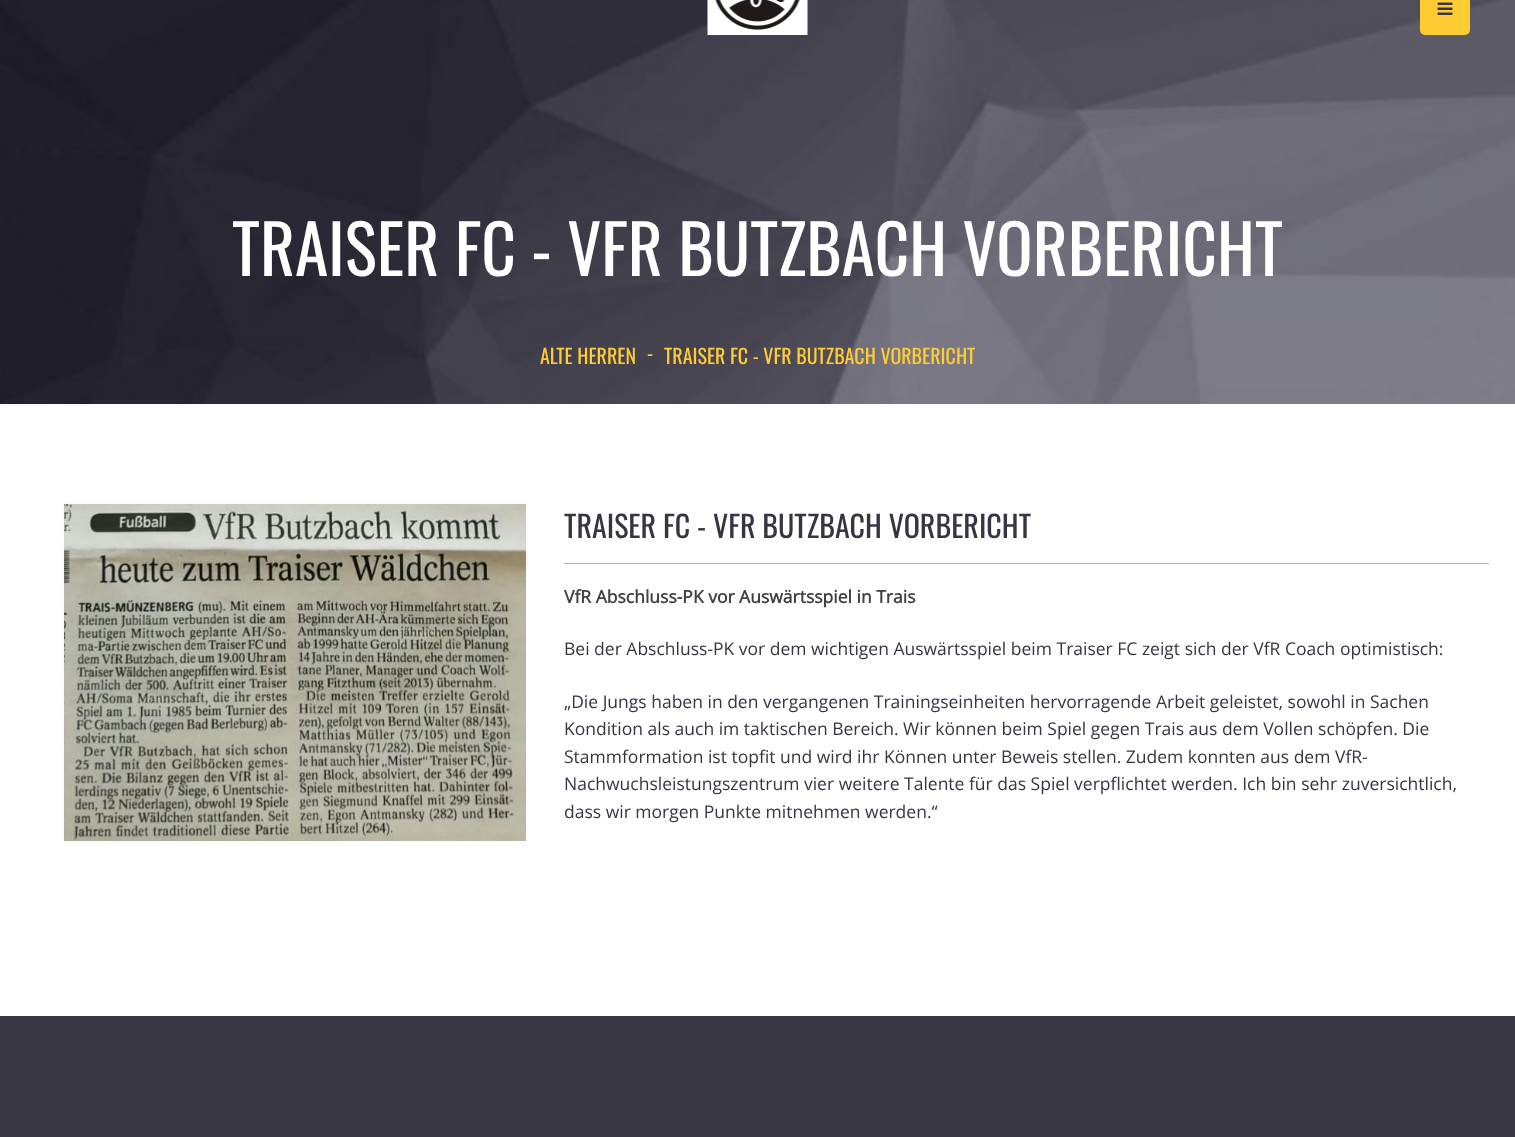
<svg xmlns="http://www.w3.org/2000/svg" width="1515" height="1137">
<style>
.a{font:67.5px Oswald;fill:#fff}
.b{font:20px Oswald;fill:#fc3}
.c{font:30px Oswald;fill:#373542}
.d{font:bold 17.5px Open Sans;fill:#414141}
.e{font:17.5px Open Sans;fill:#373542}
</style>
<rect width="100%" height="100%" fill="#fff"/>
<image href="3.png" x="0" y="0" width="1515" height="404"/>
<image href="1.png" x="707" y="0" width="101" height="35"/>
<rect fill="#fc3" x="1420" y="-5" width="50" height="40" rx="5"/>
<image href="2.png" x="1437" y="2" width="16" height="13"/>
<image href="4.png" x="63" y="503" width="464" height="339"/>
<path fill="#aeaeae" d="M564 563h925v1H564z"/>
<path fill="#373542" d="M0 1016h1515v121H0z"/>
<text class="a" x="232" y="276">TRAISER FC - VFR BUTZBACH VORBERICHT</text>
<text class="b" x="540" y="364">ALTE HERREN</text>
<text class="b" x="647" y="361">-</text>
<text class="b" x="664" y="364">TRAISER FC - VFR BUTZBACH VORBERICHT</text>
<text class="c" x="564" y="538">TRAISER FC - VFR BUTZBACH VORBERICHT</text>
<text class="d" x="564" y="603">VfR Abschluss-PK vor Auswärtsspiel in Trais</text>
<text class="e" x="564" y="655">Bei der Abschluss-PK vor dem wichtigen Auswärtsspiel beim Traiser FC zeigt sich der VfR Coach optimistisch:</text>
<text class="e" x="564" y="708">„Die Jungs haben in den vergangenen Trainingseinheiten hervorragende Arbeit geleistet, sowohl in Sachen</text>
<text class="e" x="564" y="735">Kondition als auch im taktischen Bereich. Wir können beim Spiel gegen Trais aus dem Vollen schöpfen. Die</text>
<text class="e" x="564" y="763">Stammformation ist topfit und wird ihr Können unter Beweis stellen. Zudem konnten aus dem VfR-</text>
<text class="e" x="564" y="790">Nachwuchsleistungszentrum vier weitere Talente für das Spiel verpflichtet werden. Ich bin sehr zuversichtlich,</text>
<text class="e" x="564" y="818">dass wir morgen Punkte mitnehmen werden.“</text>
</svg>
